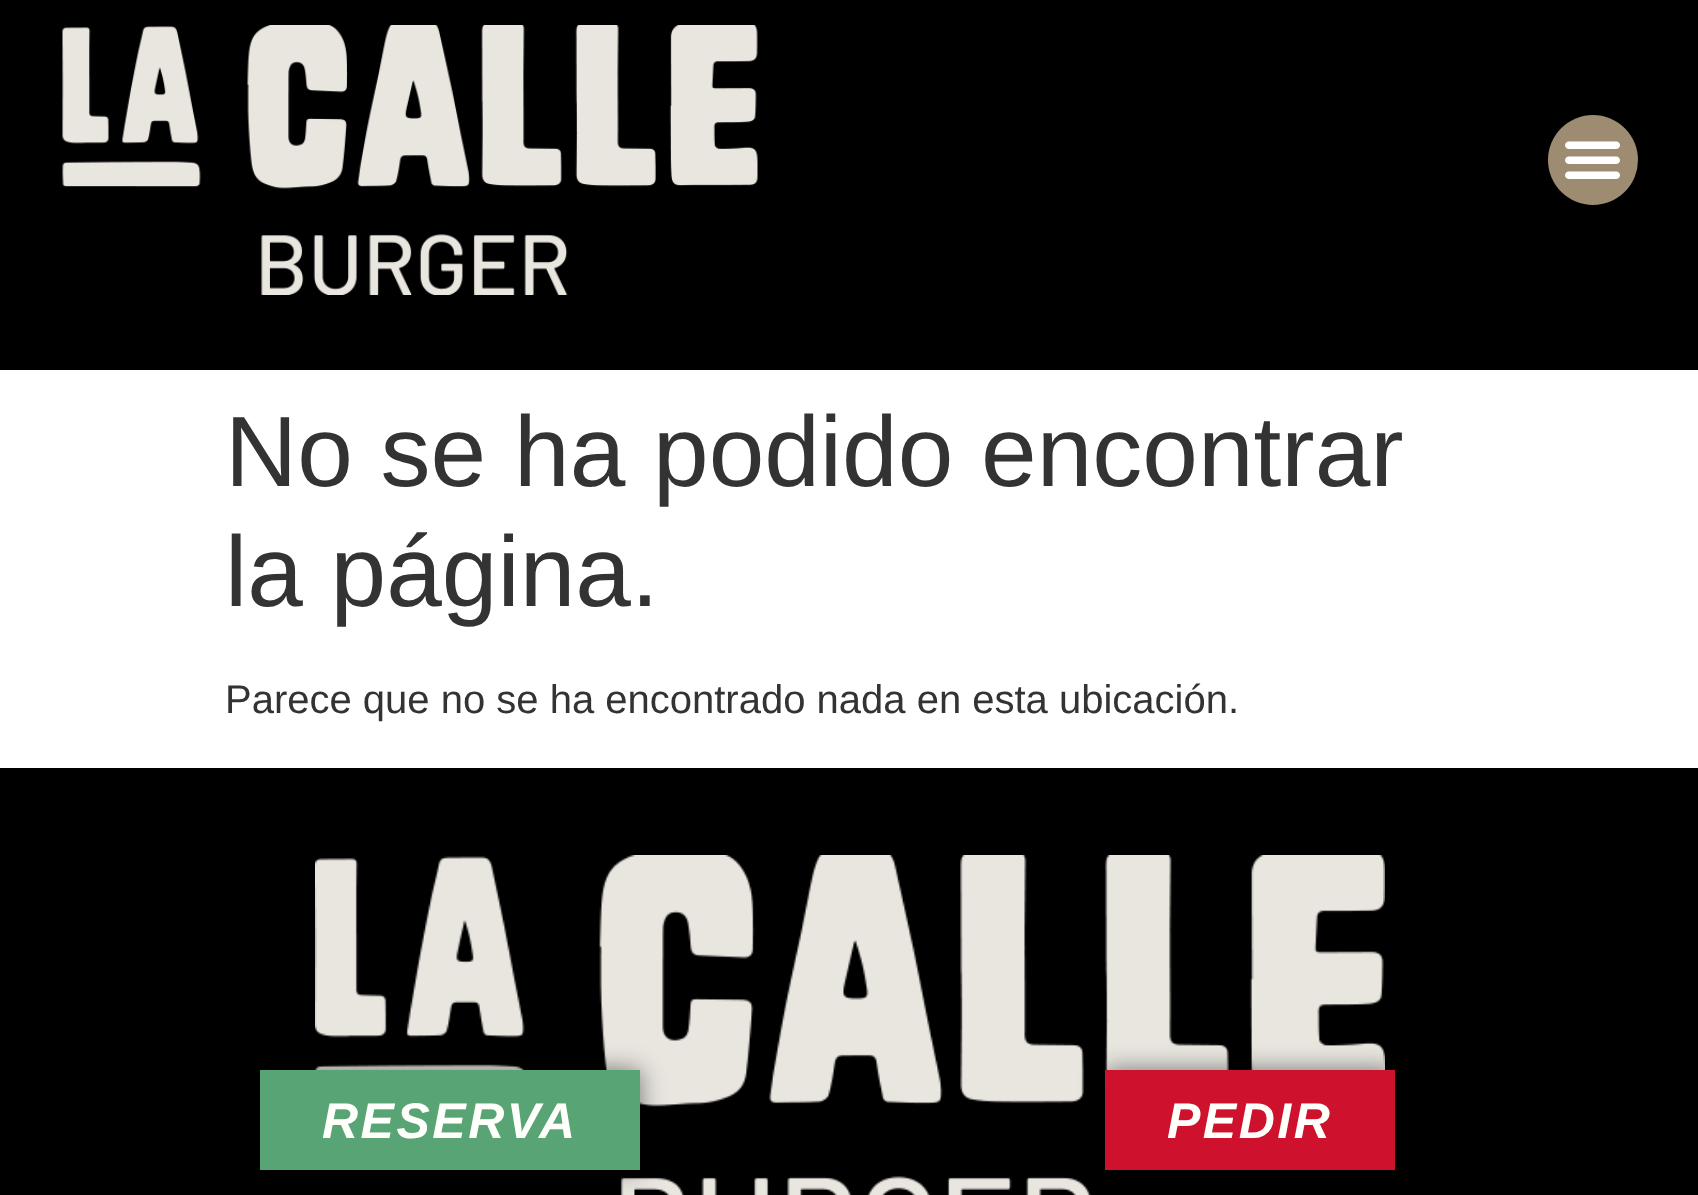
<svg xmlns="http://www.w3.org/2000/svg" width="1698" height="1195">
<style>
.a{font:100px Liberation Sans;fill:#333}
.b{font:40px Liberation Sans;fill:#333}
.c{font:italic bold 50px Liberation Sans;letter-spacing:2.5px;fill:#fffffb}
</style>
<rect width="100%" height="100%" fill="#fff"/>
<path fill="#000" d="M0 0h1698v370H0z"/>
<image href="1.png" x="62" y="25" width="696" height="270"/>
<circle fill="#9d8c71" cx="1593" cy="160" r="45"/>
<image href="2.png" x="1565" y="141" width="55" height="38"/>
<path fill="#000" d="M0 768h1698v427H0z"/>
<image href="3.png" x="315" y="855" width="1070" height="340"/>
<path fill="#00000080" filter="blur(12.5px)" d="M260 1070h380v100H260z"/>
<path fill="#58a474" d="M260 1070h380v100H260z"/>
<path fill="#00000080" filter="blur(12.5px)" d="M1105 1070h290v100H1105z"/>
<path fill="#ce122d" d="M1105 1070h290v100H1105z"/>
<text class="a" x="225" y="486">No se ha podido encontrar</text>
<text class="a" x="225" y="606">la página.</text>
<text class="b" x="225" y="713">Parece que no se ha encontrado nada en esta ubicación.</text>
<text class="c" x="322" y="1138">RESERVA</text>
<text class="c" x="1167" y="1138">PEDIR</text>
</svg>
